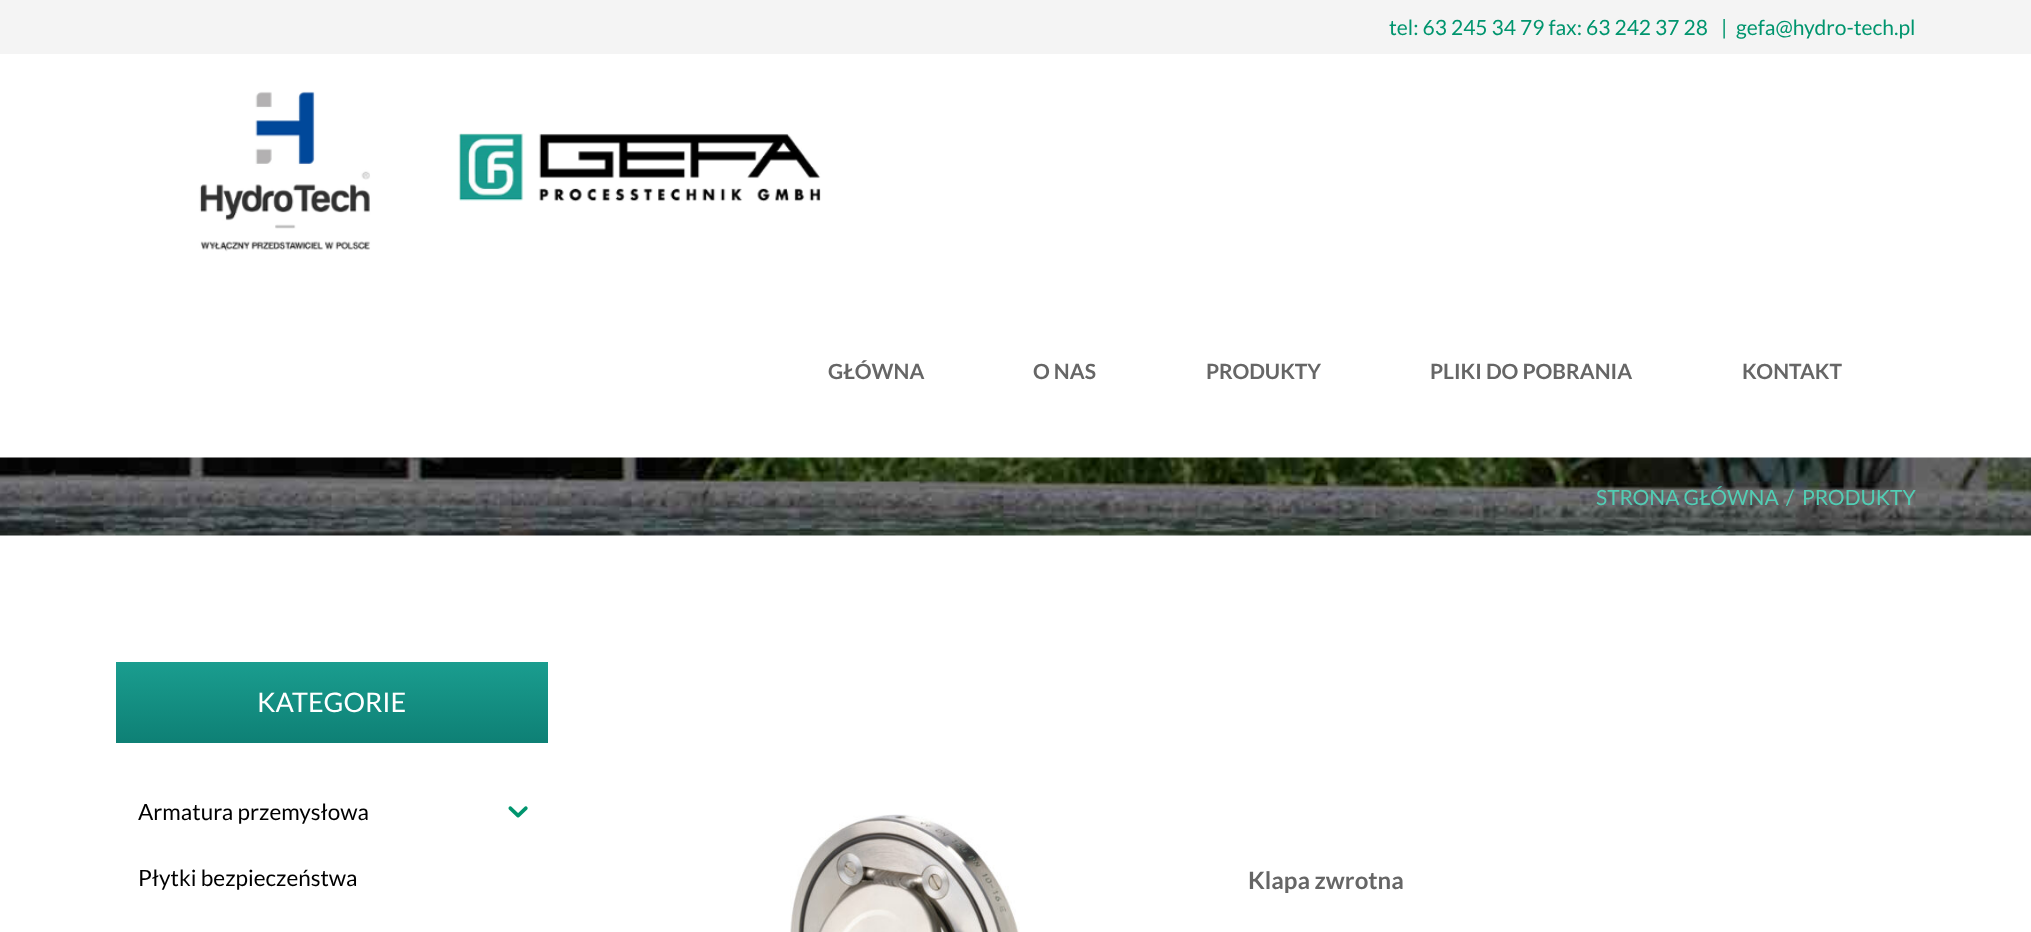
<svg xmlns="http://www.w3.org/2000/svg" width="2031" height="932">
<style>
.a{font:21px Lato;fill:#00956e}
.b{font:bold 21px Lato;fill:#666}
.c{font:21px Lato;fill:#52cdb4}
.d{font:27px Lato;fill:#fff}
.e{font:22.5px Lato;fill:#000}
.f{font:bold 24px Lato;fill:#666}
</style>
<defs>
<linearGradient id="g1" gradientUnits="userSpaceOnUse" x1="332" y1="662" x2="332" y2="743"><stop offset="0" stop-color="#1a9d8f"/><stop offset="1" stop-color="#0e8075"/></linearGradient>
</defs>
<rect width="100%" height="100%" fill="#fff"/>
<path fill="#f4f4f4" d="M0 0h2031v54H0z"/>
<image href="1.png" x="199" y="91" width="622" height="161"/>
<image href="2.png" x="0" y="457" width="2031" height="79"/>
<path fill="url(#g1)" d="M116 662h432v81H116z"/>
<image href="3.png" x="508" y="806" width="20" height="12"/>
<image href="4.png" x="790" y="814" width="230" height="118"/>
<text class="a" x="1389" y="35">tel: 63 245 34 79 fax: 63 242 37 28</text>
<text class="a" x="1721" y="35">|</text>
<text class="a" x="1736" y="35">gefa@hydro-tech.pl</text>
<text class="b" x="828" y="379">GŁÓWNA</text>
<text class="b" x="1033" y="379">O NAS</text>
<text class="b" x="1206" y="379">PRODUKTY</text>
<text class="b" x="1430" y="379">PLIKI DO POBRANIA</text>
<text class="b" x="1742" y="379">KONTAKT</text>
<text class="c" x="1596" y="505">STRONA GŁÓWNA</text>
<text class="c" x="1786" y="505">/</text>
<text class="c" x="1802" y="505">PRODUKTY</text>
<text class="d" x="257" y="712">KATEGORIE</text>
<text class="e" x="138" y="820">Armatura przemysłowa</text>
<text class="e" x="138" y="886">Płytki bezpieczeństwa</text>
<text class="f" x="1248" y="889">Klapa zwrotna</text>
</svg>
